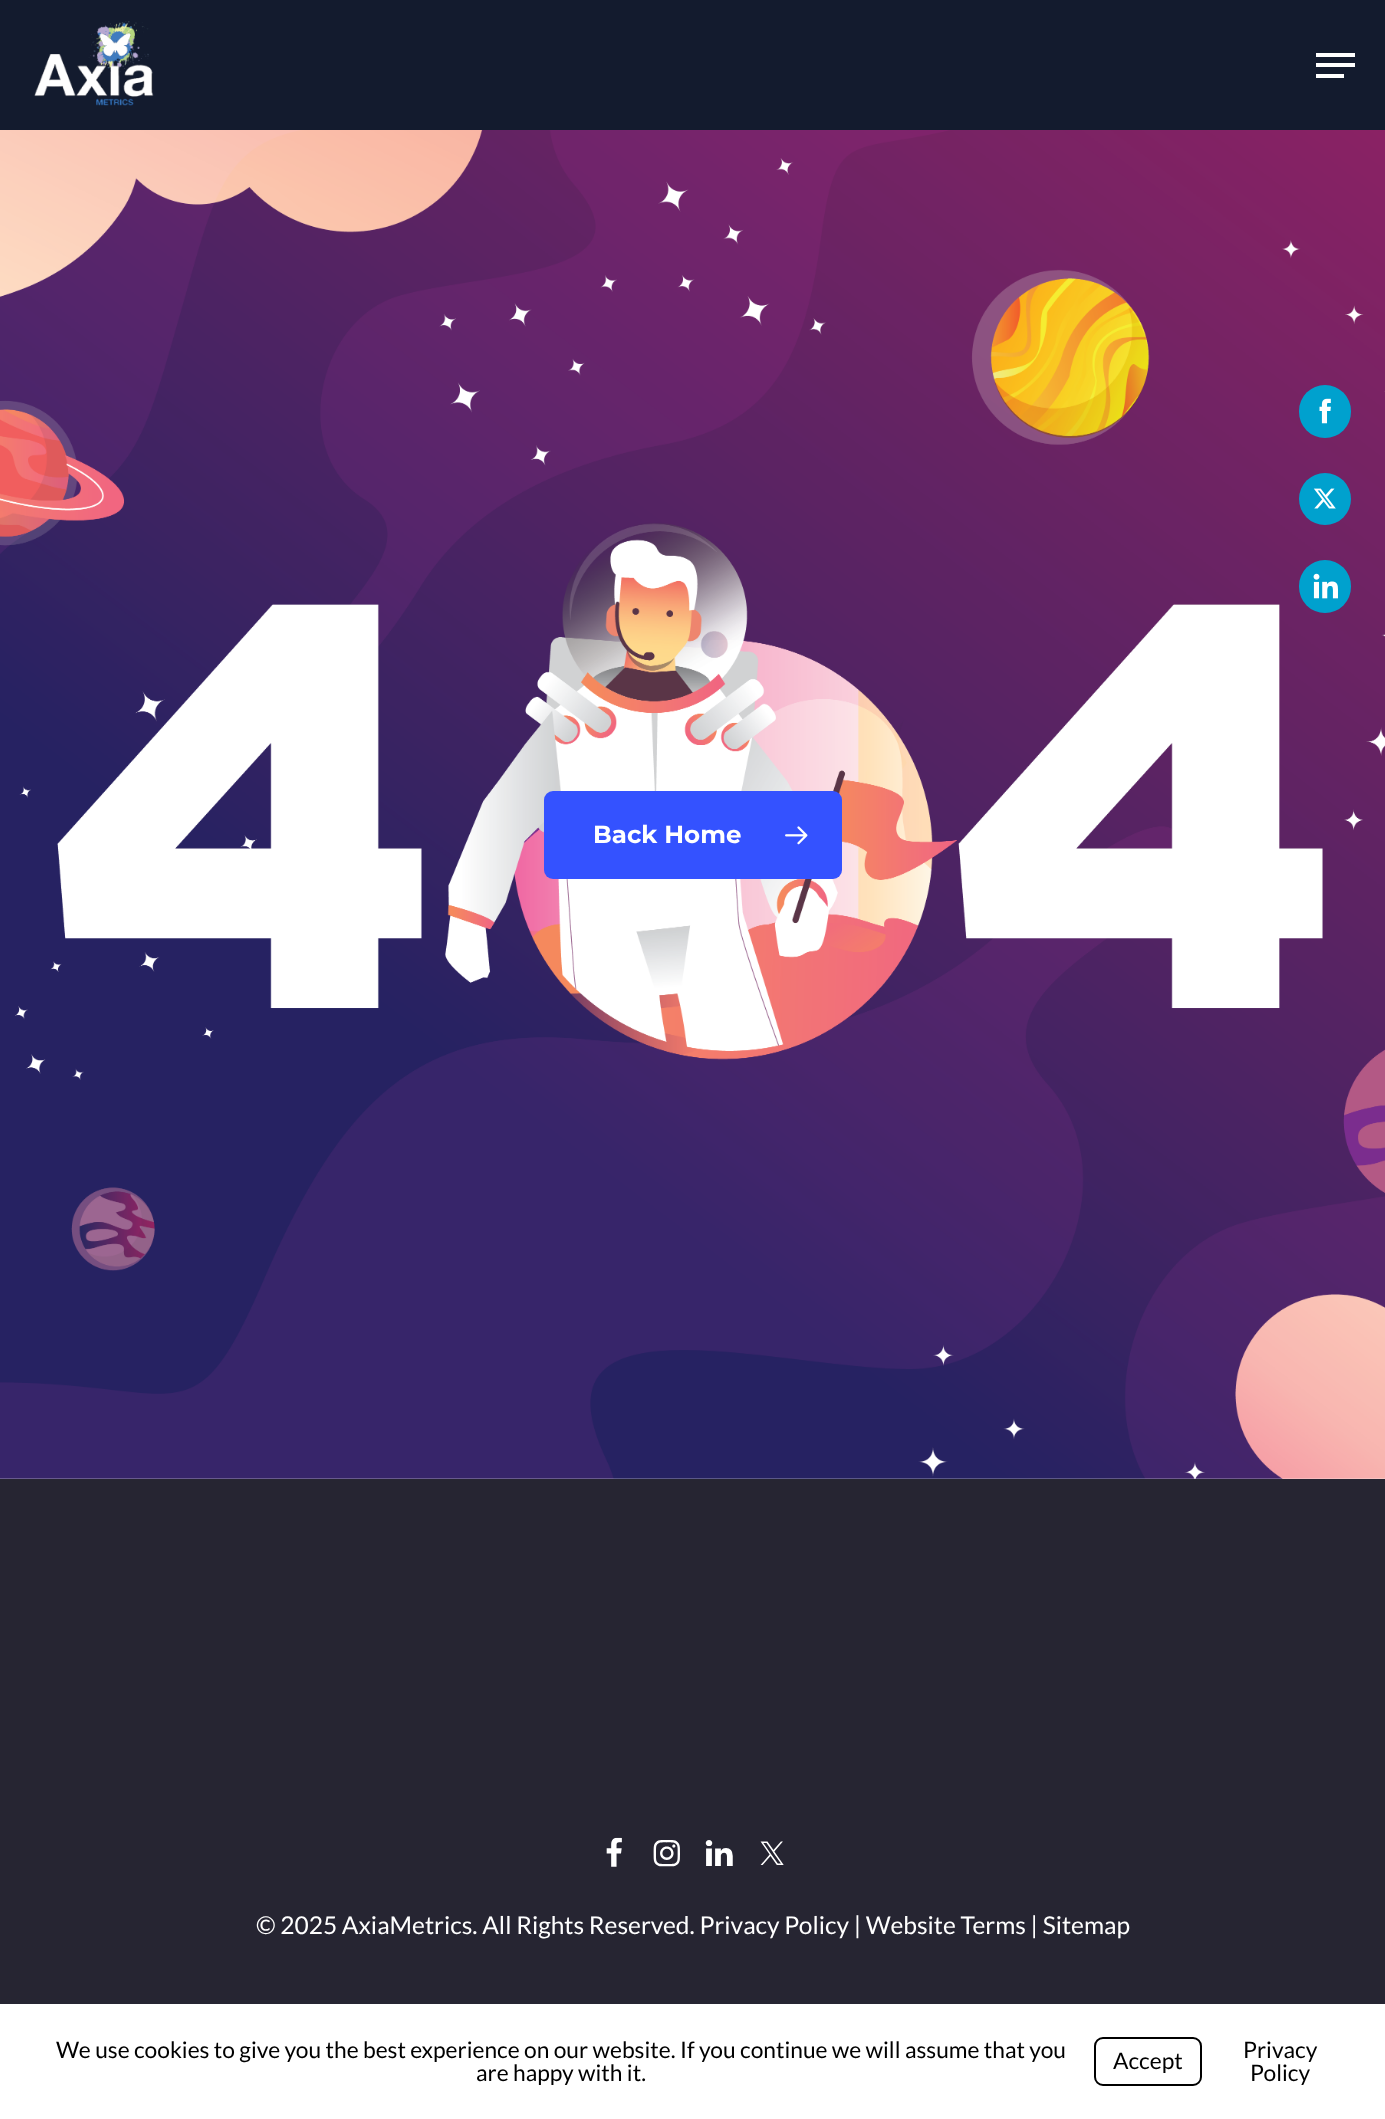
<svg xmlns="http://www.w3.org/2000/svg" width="1385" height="2119">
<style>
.a{font:bold 24.5px Montserrat;fill:#fff}
.b{font:24.5px Lato;fill:#fff}
.c{font:22.75px Lato;fill:#000}
</style>
<rect width="100%" height="100%" fill="#fff"/>
<image href="5.png" x="0" y="130" width="1385" height="1349"/>
<rect fill="#00a1ce" x="1299" y="385" width="52" height="53" rx="26"/>
<image href="1.png" x="1319" y="398" width="12" height="26"/>
<circle fill="#00a1ce" cx="1325" cy="499" r="26"/>
<image href="2.png" x="1313" y="488" width="23" height="21"/>
<rect fill="#00a1ce" x="1299" y="560" width="52" height="53" rx="26"/>
<image href="3.png" x="1313" y="573" width="25" height="26"/>
<path fill="#131b2e" d="M0 0h1385v130H0z"/>
<image href="4.png" x="34" y="21" width="120" height="85"/>
<path fill="#fff" d="M1316 53h39v4H1316z"/>
<path fill="#fff" d="M1316 74h28v4H1316z"/>
<path fill="#fff" d="M1316 63h39v4H1316z"/>
<rect fill="#3452ff" x="544" y="791" width="298" height="88" rx="9"/>
<image href="6.png" x="785" y="826" width="23" height="19"/>
<path fill="#262532" d="M0 1479h1385v525H0z"/>
<image href="7.png" x="606" y="1837" width="16" height="30"/>
<image href="8.png" x="653" y="1840" width="27" height="27"/>
<image href="9.png" x="705" y="1840" width="28" height="26"/>
<image href="10.png" x="760" y="1841" width="24" height="24"/>
<rect fill="none" stroke="#000" stroke-width="2" x="1095" y="2038" width="106" height="47" rx="8"/>
<text class="a" x="593" y="843">Back Home</text>
<text class="b" x="256" y="1934">© 2025 AxiaMetrics. All Rights Reserved. Privacy Policy | Website Terms | Sitemap</text>
<text class="c" x="56" y="2058">We use cookies to give you the best experience on our website. If you continue we will assume that you</text>
<text class="c" x="476" y="2081">are happy with it.</text>
<text class="c" x="1113" y="2069">Accept</text>
<text class="c" x="1243" y="2058">Privacy</text>
<text class="c" x="1250" y="2081">Policy</text>
</svg>
